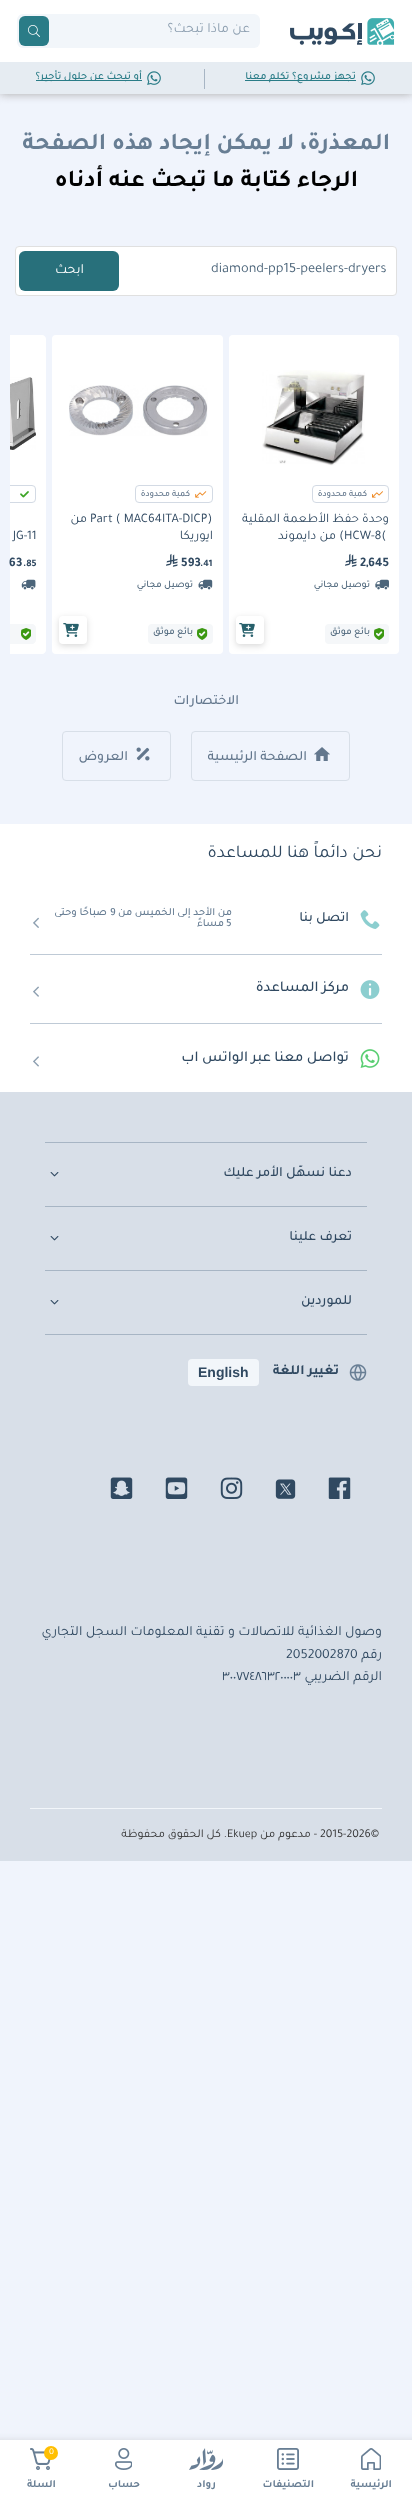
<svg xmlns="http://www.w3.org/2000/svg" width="412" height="2500">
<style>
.a{font:14px Tajawal;direction:rtl;fill:#8d9fb0}
.b{font:500 11px Tajawal;direction:rtl;fill:#2a7c87}
.c{font:bold 11px Tajawal;direction:rtl;fill:#687e94}
.d{font:9px Tajawal;fill:#fff}
.e{font:bold 24px Tajawal;direction:rtl;fill:#687e94}
.f{font:bold 24px Tajawal;direction:rtl;fill:#000}
.g{font:14.4px Tajawal;fill:#4c657a}
.h{font:14px Tajawal;direction:rtl;fill:#fff}
.i{font:500 9px Tajawal;direction:rtl;fill:#5d7288}
.j{font:13px Tajawal;direction:rtl;fill:#304961}
.k{font:13px Tajawal;fill:#304961}
.l{font:bold 13px Tajawal;fill:#304961}
.m{font:500 10px Tajawal;direction:rtl;fill:#4c657a}
.n{font:bold 10px Tajawal;fill:#304961}
.o{font:500 14px Tajawal;direction:rtl;fill:#63778d}
.p{font:18px Tajawal;direction:rtl;fill:#304961}
.q{font:500 14px Tajawal;direction:rtl;fill:#304961}
.r{font:500 11px Tajawal;direction:rtl;fill:#687e94}
.s{font:500 11px Tajawal;fill:#687e94}
.t{font:500 15px Tajawal;direction:rtl;fill:#304961}
.u{font:bold 14px Tajawal;direction:rtl;fill:#304961}
.v{font:bold 14px Liberation Sans;fill:#304961}
.w{font:14px Tajawal;direction:rtl;fill:#304961}
.x{font:14px Tajawal;fill:#304961}
.y{font:12px Tajawal;fill:#323232}
.z{font:12px Tajawal;direction:rtl;fill:#323232}
</style>
<defs>
<clipPath id="clip1"><path d="M10 320h392v334H10z"/></clipPath>
</defs>
<rect width="100%" height="100%" fill="#f0f4fc"/>
<path fill="#a7a7a7" filter="blur(5px)" d="M0 0h412v94H0z"/>
<path fill="#fff" d="M0 0h412v62H0z"/>
<image href="1.png" x="290" y="18" width="105" height="27"/>
<rect fill="#f2f6fa" x="17" y="14" width="243" height="34" rx="6"/>
<rect fill="#2a7c87" x="19" y="16" width="30" height="30" rx="6"/>
<image href="2.png" x="28" y="25" width="12" height="12"/>
<path fill="#e6ecf2" d="M0 62h412v32H0z"/>
<image href="3.png" x="361" y="71" width="14" height="14"/>
<path fill="#2a7c87" d="M245 80h111v1H245z"/>
<path fill="#a7b5c4" d="M204 69h1v20H204z"/>
<image href="3.png" x="147" y="71" width="14" height="14"/>
<path fill="#2a7c87" d="M36 80h106v1H36z"/>
<path fill="#a7a7a730" filter="blur(2.5px)" d="M-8 2438h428v60H-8z"/>
<path fill="#fff" d="M0 2440h412v60H0z"/>
<image href="4.png" x="361" y="2448" width="20" height="22"/>
<image href="5.png" x="277" y="2448" width="22" height="22"/>
<image href="6.png" x="189" y="2448" width="34" height="22"/>
<image href="7.png" x="115" y="2448" width="17" height="22"/>
<image href="8.png" x="30" y="2448" width="21" height="22"/>
<circle fill="#ffbf02" cx="51" cy="2453" r="7"/>
<rect fill="#fff" stroke="#e0e0e0" x="15.5" y="246.5" width="381" height="49" rx="3.5"/>
<rect fill="#28707b" x="19" y="251" width="100" height="40" rx="6"/>
<rect fill="#fff" x="229" y="335" width="170" height="319" rx="4"/>
<image href="9.png" x="262" y="370" width="103" height="96"/>
<rect fill="none" stroke="#d3dae4" x="312.5" y="485.5" width="76" height="17" rx="3.5"/>
<image href="10.png" x="372" y="491" width="11" height="7"/>
<image href="11.png" x="345" y="553" width="12" height="14"/>
<image href="12.png" x="375" y="579" width="14" height="11"/>
<rect fill="#f5f7f9" x="325" y="624" width="64" height="20" rx="4"/>
<image href="13.png" x="374" y="628" width="10" height="12"/>
<rect fill="#00000026" filter="blur(3px)" x="236" y="618" width="28" height="28" rx="4"/>
<rect fill="#fff" x="236" y="616" width="28" height="28" rx="4"/>
<image href="14.png" x="239" y="623" width="16" height="14"/>
<rect fill="#fff" x="52" y="335" width="171" height="319" rx="4"/>
<image href="15.png" x="69" y="385" width="139" height="51"/>
<rect fill="none" stroke="#d3dae4" x="135.5" y="485.5" width="77" height="17" rx="3.5"/>
<image href="16.png" x="195" y="491" width="12" height="7"/>
<image href="11.png" x="166" y="553" width="12" height="14"/>
<image href="17.png" x="198" y="579" width="15" height="11"/>
<rect fill="#f5f7f9" x="148" y="624" width="65" height="20" rx="4"/>
<image href="18.png" x="197" y="628" width="11" height="12"/>
<rect fill="#00000026" filter="blur(3px)" x="59" y="618" width="28" height="28" rx="4"/>
<rect fill="#fff" x="59" y="616" width="28" height="28" rx="4"/>
<image href="14.png" x="63" y="623" width="16" height="14"/>
<path fill="#fff" d="M10 335h32c2 0 4 2 4 4v311c0 2-2 4-4 4h-32z"/>
<image href="19.png" x="10" y="377" width="26" height="73"/>
<g clip-path="url(#clip1)">
<rect fill="none" stroke="#d3dae4" x="-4.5" y="485.5" width="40" height="17" rx="3.5"/>
</g>
<image href="20.png" x="20" y="491" width="9" height="7"/>
<image href="21.png" x="21" y="579" width="15" height="11"/>
<path fill="#f5f7f9" d="M10 624h22c2 0 4 2 4 4v12c0 2-2 4-4 4h-22z"/>
<image href="13.png" x="21" y="628" width="10" height="12"/>
<rect fill="none" stroke="#d8dfe8" x="191.5" y="731.5" width="158" height="49" rx="3.5"/>
<image href="22.png" x="314" y="747" width="16" height="14"/>
<rect fill="none" stroke="#d8dfe8" x="62.5" y="731.5" width="108" height="49" rx="3.5"/>
<image href="23.png" x="136" y="747" width="14" height="14"/>
<path fill="#fff" d="M0 824h412v268H0z"/>
<path fill="#bfcad6" d="M30 954h352v1H30z"/>
<image href="24.png" x="360" y="910" width="20" height="19"/>
<image href="25.png" x="33" y="917" width="6" height="11"/>
<path fill="#bfcad6" d="M30 1023h352v1H30z"/>
<image href="26.png" x="360" y="980" width="20" height="19"/>
<image href="27.png" x="33" y="986" width="6" height="11"/>
<image href="28.png" x="360" y="1049" width="20" height="19"/>
<image href="29.png" x="33" y="1056" width="6" height="11"/>
<path fill="#d8dfe8" d="M0 1092h412v769H0z"/>
<path fill="#a7b5c4" d="M45 1142h322v1H45z"/>
<image href="30.png" x="50" y="1172" width="9" height="5"/>
<path fill="#a7b5c4" d="M45 1206h322v1H45z"/>
<image href="30.png" x="50" y="1236" width="9" height="5"/>
<path fill="#a7b5c4" d="M45 1270h322v1H45z"/>
<path fill="#a7b5c4" d="M45 1334h322v1H45z"/>
<image href="30.png" x="50" y="1300" width="9" height="5"/>
<image href="31.png" x="349" y="1364" width="18" height="17"/>
<rect fill="#f2f6fa" x="188" y="1359" width="71" height="27" rx="4"/>
<image href="32.png" x="328" y="1477" width="23" height="22"/>
<image href="33.png" x="275" y="1479" width="21" height="20"/>
<image href="34.png" x="220" y="1477" width="23" height="22"/>
<image href="35.png" x="165" y="1477" width="23" height="22"/>
<image href="36.png" x="110" y="1477" width="23" height="22"/>
<path fill="#f2f6fa" d="M30 1808h352v1H30z"/>
<text class="a" x="250" y="32">عن ماذا تبحث؟</text>
<text class="b" x="356" y="79">تجهز مشروع؟ تكلم معنا</text>
<text class="b" x="142" y="79">أو تبحث عن حلول تأجير؟</text>
<text class="c" x="392" y="2487">الرئيسية</text>
<text class="c" x="314" y="2487">التصنيفات</text>
<text class="c" x="216" y="2487">رواد</text>
<text class="c" x="140" y="2487">حساب</text>
<text class="d" x="49" y="2454">0</text>
<text class="c" x="56" y="2487">السلة</text>
<text class="e" x="390" y="149">المعذرة، لا يمكن إيجاد هذه الصفحة</text>
<text class="f" x="358" y="186">الرجاء كتابة ما تبحث عنه أدناه</text>
<text class="g" x="211" y="272">diamond-pp15-peelers-dryers</text>
<text class="h" x="84" y="273">ابحث</text>
<text class="i" x="367" y="496">كمية محدودة</text>
<text class="j" x="389" y="522">وحدة حفظ الأطعمة المقلية</text>
<text class="k" x="344" y="539">HCW-8(</text>
<text class="j" x="344" y="539">) من دايموند</text>
<text class="l" x="360" y="566">2,645</text>
<text class="m" x="370" y="587">توصيل مجاني</text>
<text class="m" x="370" y="634">بائع موثق</text>
<text class="i" x="190" y="496">كمية محدودة</text>
<text class="k" x="90" y="522">Part ( MAC64ITA-DICP)</text>
<text class="j" x="87" y="522">من</text>
<text class="j" x="213" y="539">ايوريكا</text>
<text class="n" x="200" y="566">.41</text>
<text class="l" x="181" y="566">593</text>
<text class="m" x="193" y="587">توصيل مجاني</text>
<text class="m" x="193" y="634">بائع موثق</text>
<text class="k" x="13" y="539">JG-11</text>
<text class="n" x="23" y="566">.85</text>
<text class="l" x="9" y="566">63</text>
<text class="o" x="239" y="704">الاختصارات</text>
<text class="o" x="307" y="760">الصفحة الرئيسية</text>
<text class="o" x="128" y="760">العروض</text>
<text class="p" x="382" y="857">نحن دائماً هنا للمساعدة</text>
<text class="q" x="349" y="921">اتصل بنا</text>
<text class="r" x="232" y="915">من الأحد إلى الخميس من</text>
<text class="s" x="110" y="915">9</text>
<text class="r" x="107" y="915">صباحًا وحتى</text>
<text class="s" x="226" y="926">5</text>
<text class="r" x="224" y="926">مساءً</text>
<text class="t" x="349" y="991">مركز المساعدة</text>
<text class="t" x="349" y="1061">تواصل معنا عبر الواتس اب</text>
<text class="q" x="352" y="1176">دعنا نسهّل الأمر عليك</text>
<text class="q" x="352" y="1240">تعرف علينا</text>
<text class="q" x="352" y="1304">للموردين</text>
<text class="u" x="339" y="1374">تغيير اللغة</text>
<text class="v" x="198" y="1377">English</text>
<text class="w" x="382" y="1635">وصول الغذائية للاتصالات و تقنية المعلومات</text>
<text class="w" x="127" y="1635">السجل التجاري</text>
<text class="w" x="382" y="1658">رقم</text>
<text class="x" x="286" y="1658">2052002870</text>
<text class="w" x="382" y="1680">الرقم الضريبي</text>
<text class="x" x="222" y="1680">٣٠٠٧٧٤٨٦٣٢٠٠٠٠٣</text>
<text class="y" x="320" y="1837">2015-2026©</text>
<text class="z" x="317" y="1837">- مدعوم من</text>
<text class="y" x="227" y="1837">Ekuep</text>
<text class="z" x="227" y="1837">. كل الحقوق محفوظة</text>
</svg>
